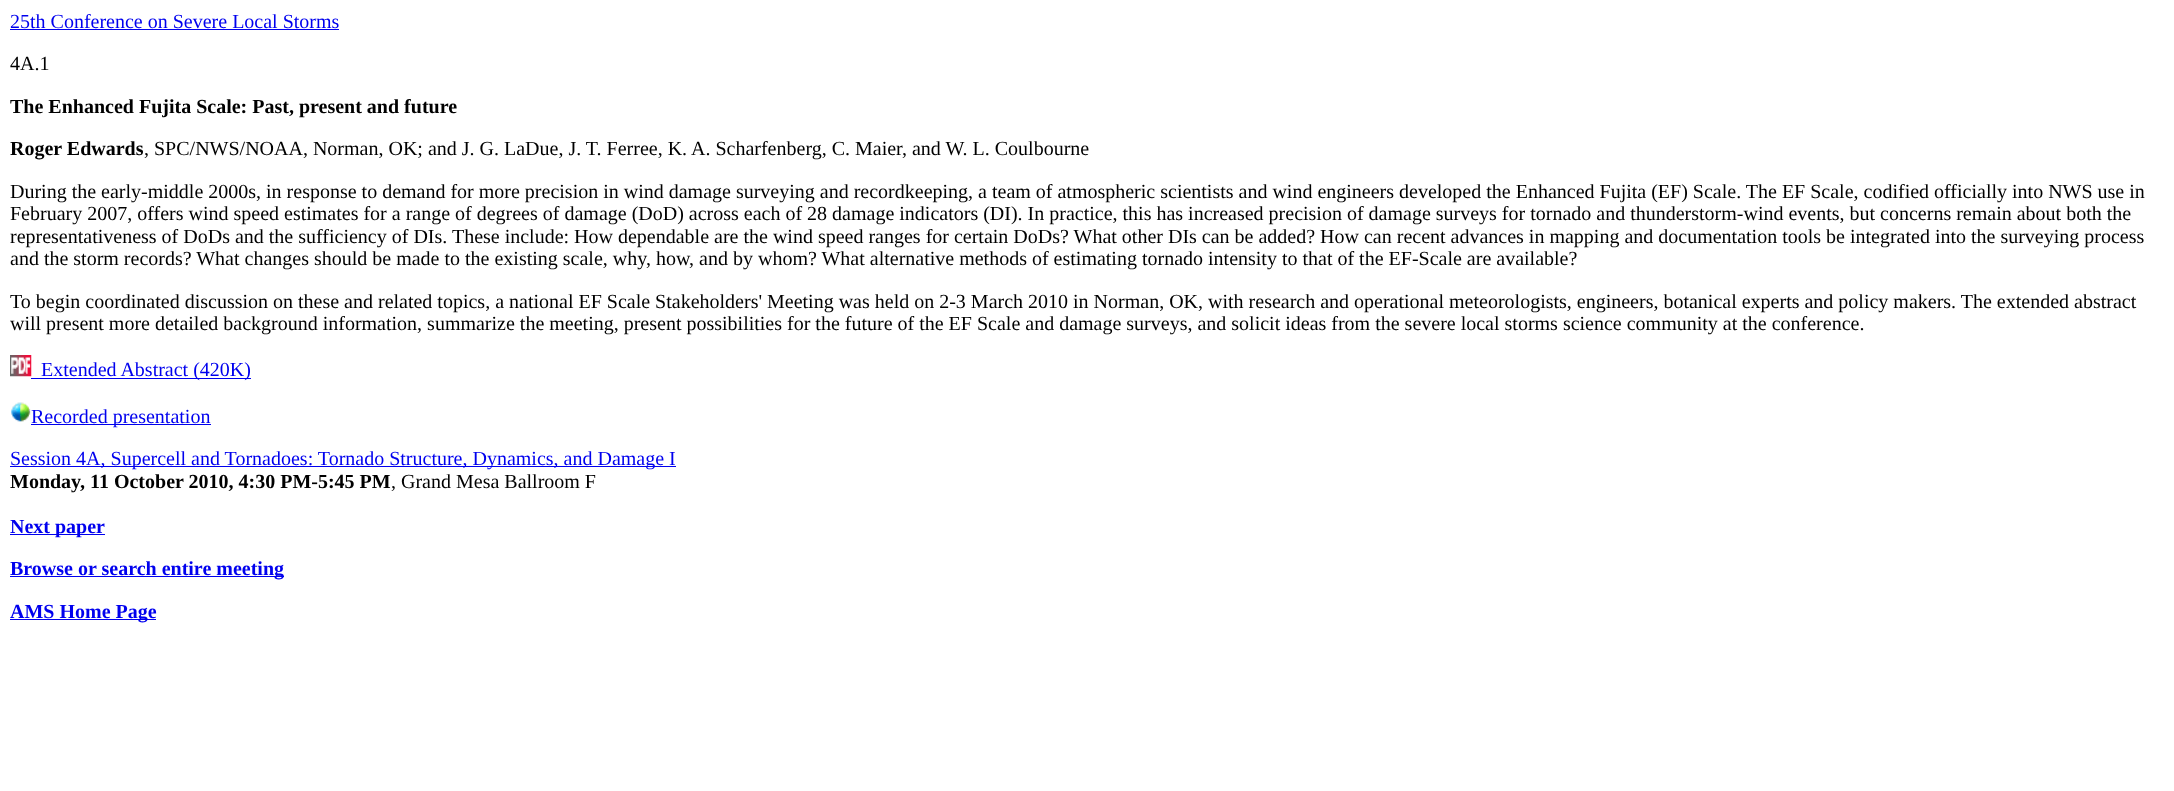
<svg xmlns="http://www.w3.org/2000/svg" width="2174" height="791">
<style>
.a{font:20px Liberation Serif;fill:#00e}
.b{font:20px Liberation Serif;fill:#000}
.c{font:bold 20px Liberation Serif;fill:#000}
.d{font:bold 20px Liberation Serif;fill:#00e}
</style>
<rect width="100%" height="100%" fill="#fff"/>
<path fill="#00e" d="M10 29h329v1H10z"/>
<image href="1.png" x="10" y="355" width="22" height="22"/>
<path fill="#00e" d="M31 378h220v1H31z"/>
<image href="2.png" x="11" y="402" width="20" height="20"/>
<path fill="#00e" d="M31 424h180v1H31z"/>
<path fill="#00e" d="M10 466h666v1H10z"/>
<path fill="#00e" d="M10 534h95v1H10z"/>
<path fill="#00e" d="M10 576h274v1H10z"/>
<path fill="#00e" d="M10 619h146v1H10z"/>
<text class="a" x="10" y="28">25th Conference on Severe Local Storms</text>
<text class="b" x="10" y="70">4A.1</text>
<text class="c" x="10" y="113">The Enhanced Fujita Scale: Past, present and future</text>
<text class="c" x="10" y="155">Roger Edwards</text>
<text class="b" x="144" y="155">, SPC/NWS/NOAA, Norman, OK; and J. G. LaDue, J. T. Ferree, K. A. Scharfenberg, C. Maier, and W. L. Coulbourne</text>
<text class="b" x="10" y="198">During the early-middle 2000s, in response to demand for more precision in wind damage surveying and recordkeeping, a team of atmospheric scientists and wind engineers developed the Enhanced Fujita (EF) Scale. The EF Scale, codified officially into NWS use in</text>
<text class="b" x="10" y="220">February 2007, offers wind speed estimates for a range of degrees of damage (DoD) across each of 28 damage indicators (DI). In practice, this has increased precision of damage surveys for tornado and thunderstorm-wind events, but concerns remain about both the</text>
<text class="b" x="10" y="243">representativeness of DoDs and the sufficiency of DIs. These include: How dependable are the wind speed ranges for certain DoDs? What other DIs can be added? How can recent advances in mapping and documentation tools be integrated into the surveying process</text>
<text class="b" x="10" y="265">and the storm records? What changes should be made to the existing scale, why, how, and by whom? What alternative methods of estimating tornado intensity to that of the EF-Scale are available?</text>
<text class="b" x="10" y="308">To begin coordinated discussion on these and related topics, a national EF Scale Stakeholders' Meeting was held on 2-3 March 2010 in Norman, OK, with research and operational meteorologists, engineers, botanical experts and policy makers. The extended abstract</text>
<text class="b" x="10" y="330">will present more detailed background information, summarize the meeting, present possibilities for the future of the EF Scale and damage surveys, and solicit ideas from the severe local storms science community at the conference.</text>
<text class="a" x="41" y="376">Extended Abstract (420K)</text>
<text class="a" x="31" y="423">Recorded presentation</text>
<text class="a" x="10" y="465">Session 4A, Supercell and Tornadoes: Tornado Structure, Dynamics, and Damage I</text>
<text class="c" x="10" y="488">Monday, 11 October 2010, 4:30 PM-5:45 PM</text>
<text class="b" x="391" y="488">, Grand Mesa Ballroom F</text>
<text class="d" x="10" y="533">Next paper</text>
<text class="d" x="10" y="575">Browse or search entire meeting</text>
<text class="d" x="10" y="618">AMS Home Page</text>
</svg>
